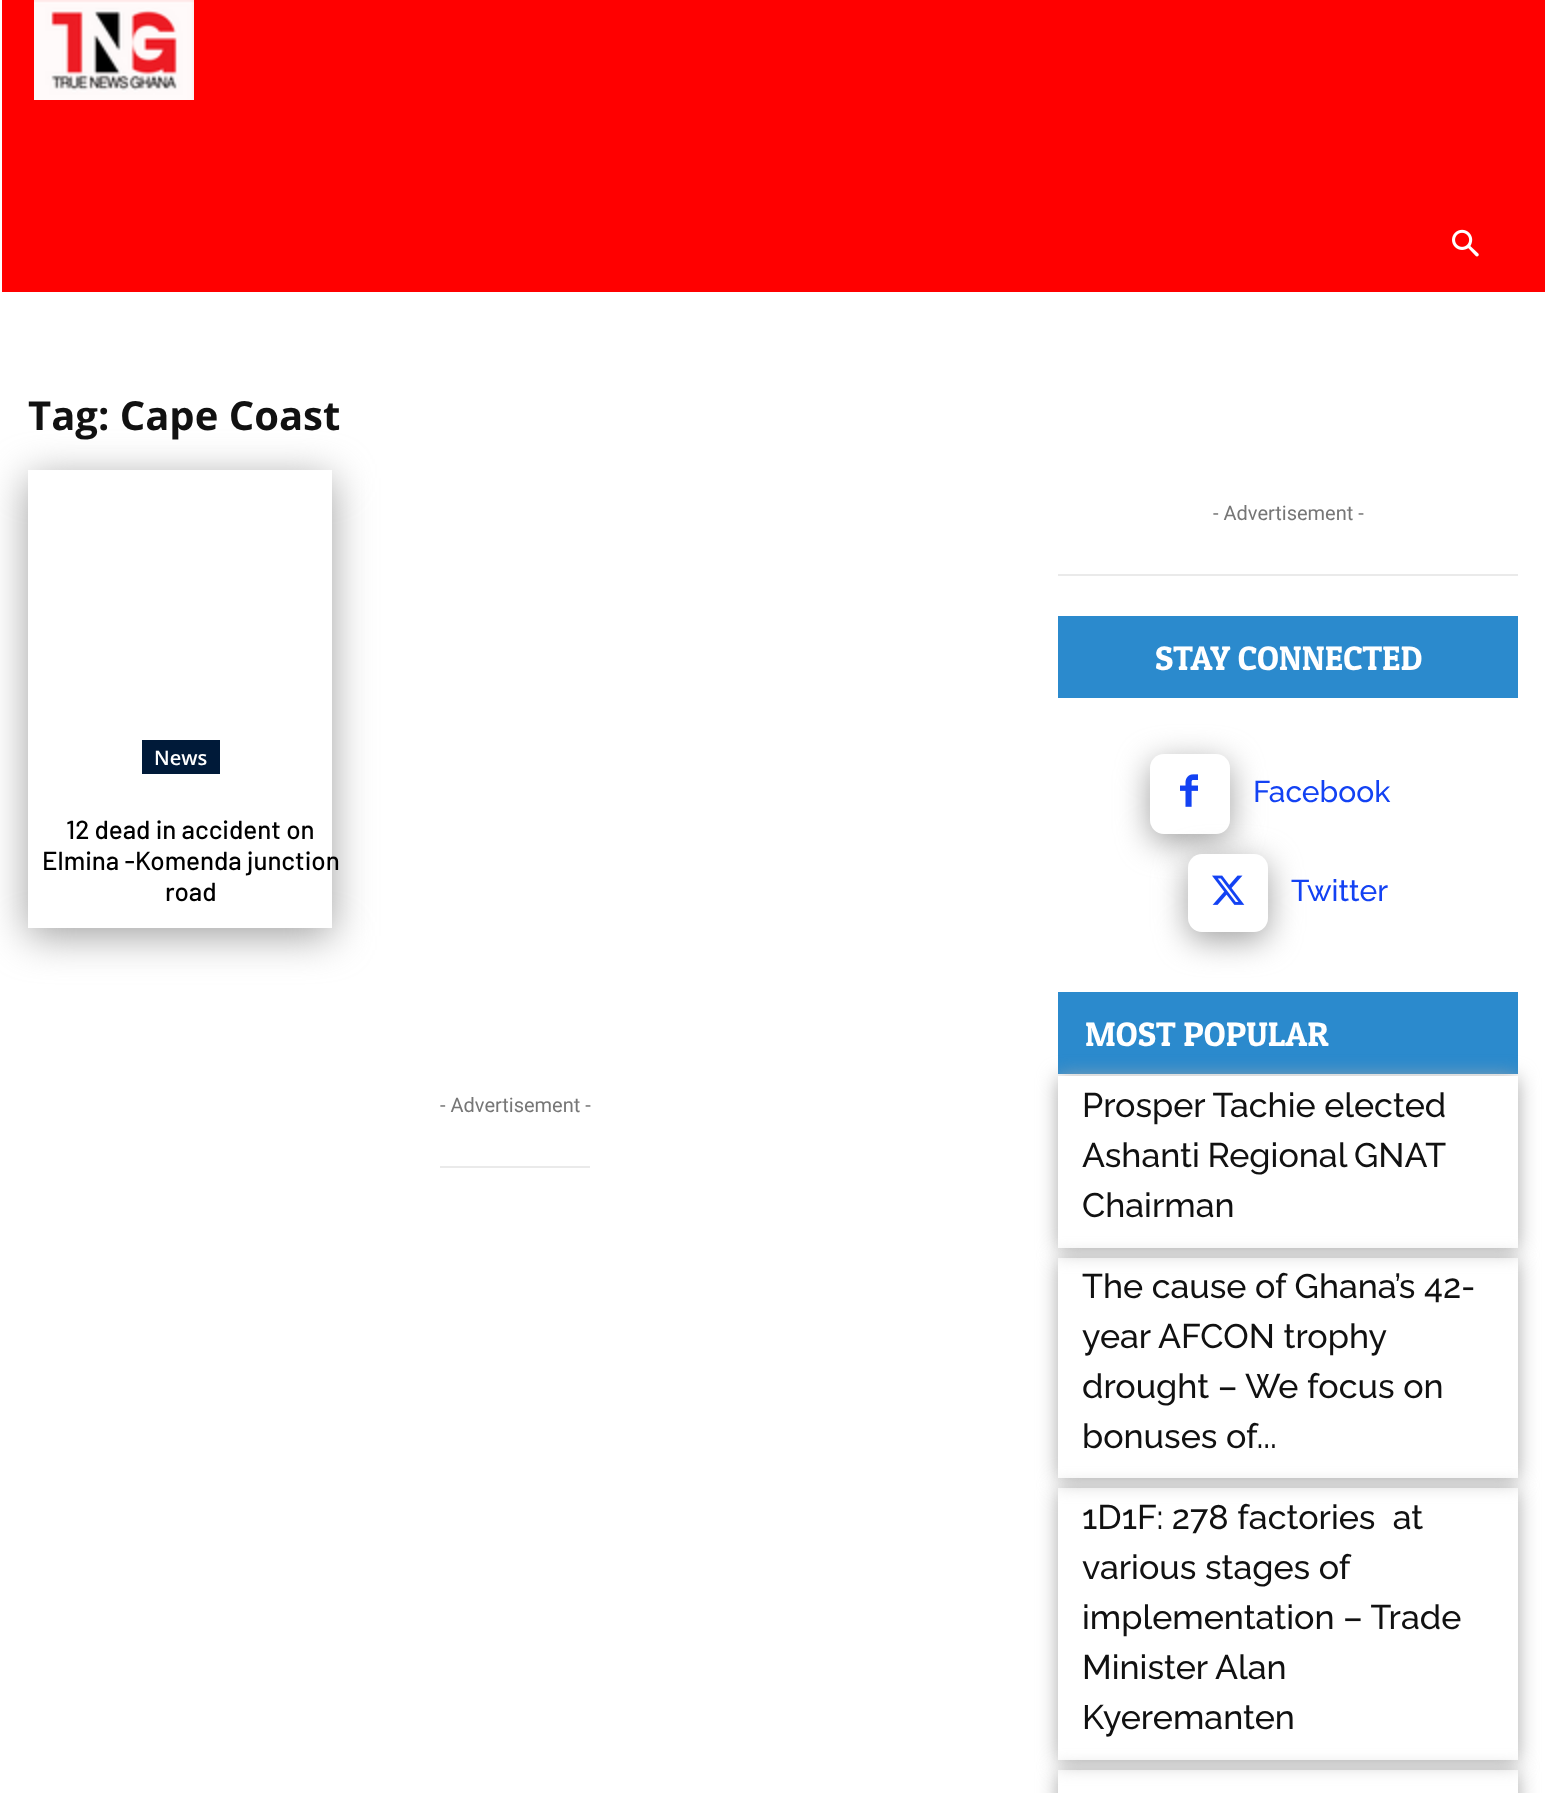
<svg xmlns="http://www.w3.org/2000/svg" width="1545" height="1793">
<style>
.a{font:bold 40px Open Sans;fill:#111}
.b{font:600 20px Open Sans;fill:#fff}
.c{font:500 26px Barlow;fill:#000}
.d{font:20px Roboto;fill:#767676}
.e{font:34px Patua One;fill:#fff}
.f{font:500 30px Raleway;fill:#1342f3}
.g{font:500 34px Raleway;fill:#111}
</style>
<defs>
<clipPath id="clip1"><path d="M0 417h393v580h-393zm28 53h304v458h-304z" clip-rule="evenodd"/></clipPath>
<clipPath id="clip2"><path d="M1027 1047h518v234h-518zm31 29h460v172h-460z" clip-rule="evenodd"/></clipPath>
<clipPath id="clip3"><path d="M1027 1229h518v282h-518zm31 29h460v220h-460z" clip-rule="evenodd"/></clipPath>
<clipPath id="clip4"><path d="M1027 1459h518v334h-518zm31 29h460v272h-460z" clip-rule="evenodd"/></clipPath>
<clipPath id="clip5"><path d="M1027 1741h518v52h-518zm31 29h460v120h-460z" clip-rule="evenodd"/></clipPath>
</defs>
<rect width="100%" height="100%" fill="#fff"/>
<path fill="#f00" d="M2 0h1543v292H2z"/>
<image href="1.png" x="34" y="0" width="160" height="100"/>
<image href="2.png" x="1452" y="229" width="27" height="28"/>
<g clip-path="url(#clip1)">
<path fill="#a0a0a0" filter="blur(20px)" d="M28 478h304v458H28z"/>
</g>
<path fill="#001a39" d="M142 740h78v34H142z"/>
<path fill="#eaeaea" d="M440 1166h150v2H440z"/>
<path fill="#eaeaea" d="M1058 574h460v2H1058z"/>
<path fill="#2b8acd" d="M1058 616h460v82H1058z"/>
<rect fill="#a0a0a0" filter="blur(16px)" x="1150" y="762" width="80" height="80" rx="14"/>
<rect fill="#fff" x="1150" y="754" width="80" height="80" rx="14"/>
<image href="3.png" x="1180" y="774" width="18" height="33"/>
<rect fill="#a0a0a0" filter="blur(16px)" x="1188" y="862" width="80" height="78" rx="14"/>
<rect fill="#fff" x="1188" y="854" width="80" height="78" rx="14"/>
<image href="4.png" x="1212" y="875" width="33" height="30"/>
<path fill="#2b8acd" d="M1058 992h460v82H1058z"/>
<g clip-path="url(#clip2)">
<path fill="#a8a8a8" filter="blur(10px)" d="M1058 1078h460v172H1058z"/>
</g>
<g clip-path="url(#clip3)">
<path fill="#a8a8a8" filter="blur(10px)" d="M1058 1260h460v220H1058z"/>
</g>
<g clip-path="url(#clip4)">
<path fill="#a8a8a8" filter="blur(10px)" d="M1058 1490h460v272H1058z"/>
</g>
<g clip-path="url(#clip5)">
<path fill="#a8a8a8" filter="blur(10px)" d="M1058 1772h460v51H1058z"/>
</g>
<text class="a" x="28" y="430">Tag: Cape Coast</text>
<text class="b" x="154" y="765">News</text>
<text class="c" x="66" y="839">12 dead in accident on</text>
<text class="c" x="42" y="870">Elmina -Komenda junction</text>
<text class="c" x="165" y="901">road</text>
<text class="d" x="440" y="1112">- Advertisement -</text>
<text class="d" x="1213" y="520">- Advertisement -</text>
<text class="e" x="1155" y="670">STAY CONNECTED</text>
<text class="f" x="1253" y="802">Facebook</text>
<text class="f" x="1291" y="901">Twitter</text>
<text class="e" x="1085" y="1046">MOST POPULAR</text>
<text class="g" x="1082" y="1117">Prosper Tachie elected</text>
<text class="g" x="1082" y="1167" word-spacing="-1">Ashanti Regional GNAT</text>
<text class="g" x="1082" y="1217">Chairman</text>
<text class="g" x="1082" y="1298">The cause of Ghana’s 42-</text>
<text class="g" x="1082" y="1348">year AFCON trophy</text>
<text class="g" x="1082" y="1398">drought – We focus on</text>
<text class="g" x="1082" y="1448">bonuses of...</text>
<text class="g" xml:space="preserve" x="1082" y="1529">1D1F: 278 factories  at</text>
<text class="g" x="1082" y="1579">various stages of</text>
<text class="g" x="1082" y="1629">implementation – Trade</text>
<text class="g" x="1082" y="1679">Minister Alan</text>
<text class="g" x="1082" y="1729">Kyeremanten</text>
</svg>
